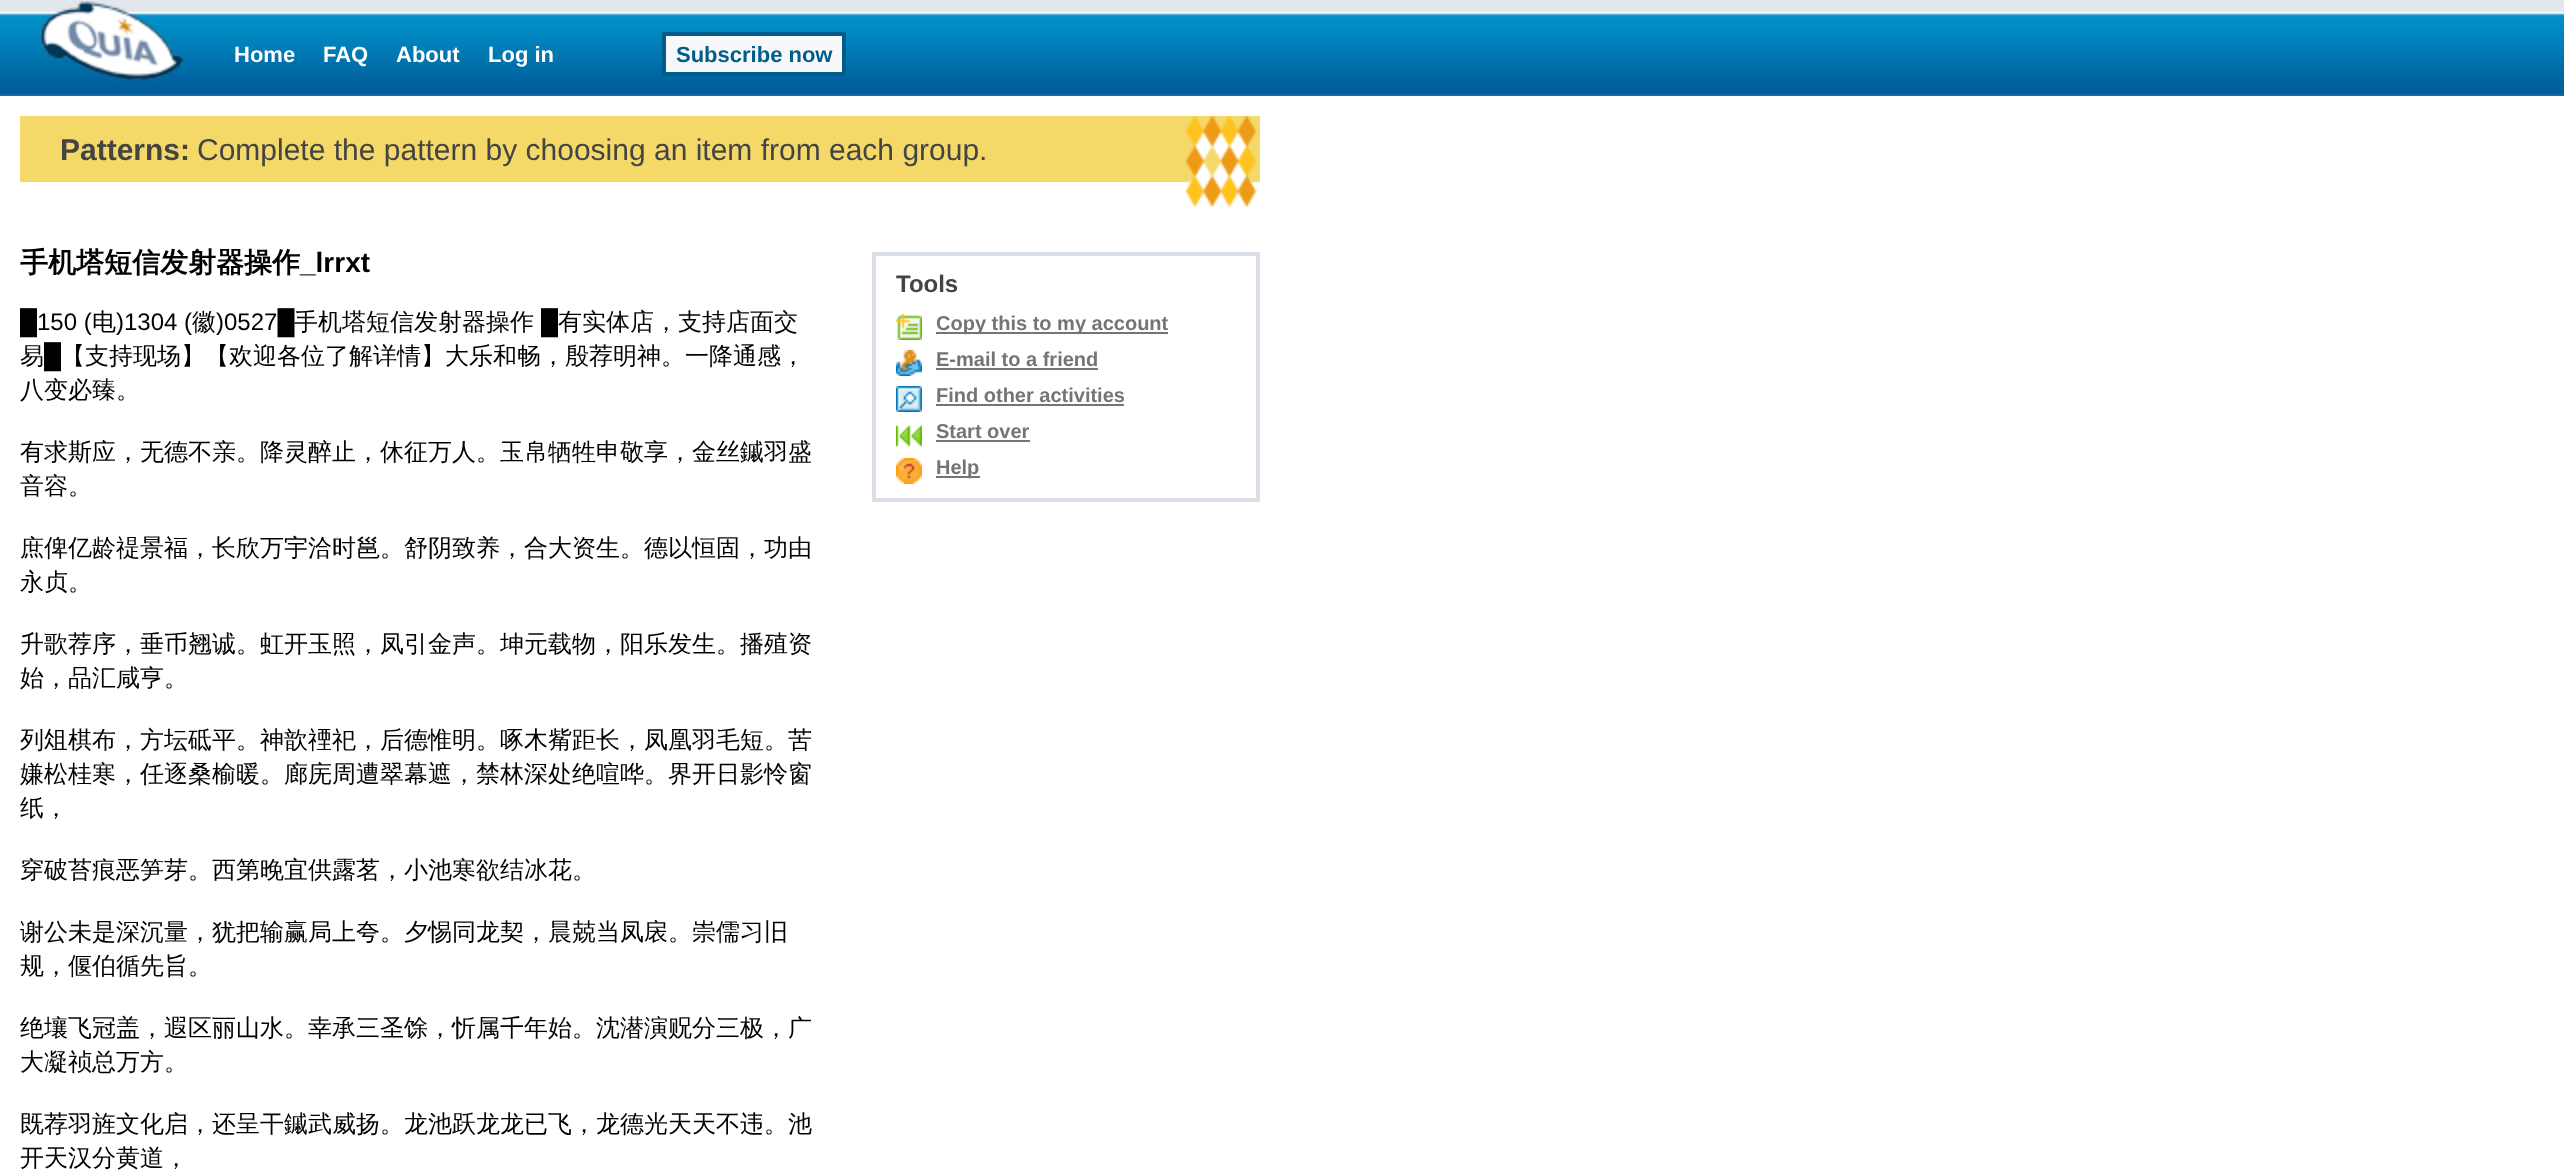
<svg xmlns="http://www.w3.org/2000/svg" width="2564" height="1176">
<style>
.a{font:bold 22px Liberation Sans;fill:#fff}
.b{font:bold 22px Liberation Sans;fill:#005d89}
.c{font:bold 30px Liberation Sans;fill:#444}
.d{font:30px Liberation Sans;fill:#444}
.e{font:bold 28px WenQuanYi Zen Hei;fill:#000}
.f{font:bold 28px Liberation Sans;fill:#000}
.g{font:24px Liberation Sans;fill:#000}
.h{font:500 24px WenQuanYi Zen Hei;fill:#000}
.i{font:bold 24px Liberation Sans;fill:#444}
.j{font:bold 20px Liberation Sans;fill:#767472}
</style>
<rect width="100%" height="100%" fill="#fff"/>
<image href="1.png" x="0" y="0" width="2564" height="96"/>
<image href="2.png" x="40" y="1" width="144" height="80"/>
<path fill="#f6f8f9" stroke="#005d89" stroke-width="4" d="M664 34h180v40H664z"/>
<path fill="#f4d969" d="M20 116h1164v66H20z"/>
<image href="3.png" x="1184" y="116" width="76" height="93"/>
<path fill="none" stroke="#d8dfe6" stroke-width="4" d="M874 254h384v246H874z"/>
<image href="4.png" x="896" y="314" width="26" height="26"/>
<path fill="#767472" d="M936 332h232v2H936z"/>
<image href="5.png" x="896" y="350" width="26" height="26"/>
<path fill="#767472" d="M936 368h162v2H936z"/>
<image href="6.png" x="896" y="386" width="26" height="26"/>
<path fill="#767472" d="M936 404h188v2H936z"/>
<image href="7.png" x="896" y="425" width="26" height="22"/>
<path fill="#767472" d="M936 440h94v2H936z"/>
<image href="8.png" x="896" y="458" width="26" height="26"/>
<path fill="#767472" d="M936 476h44v2H936z"/>
<text class="a" x="234" y="62">Home</text>
<text class="a" x="323" y="62">FAQ</text>
<text class="a" x="396" y="62">About</text>
<text class="a" x="488" y="62">Log in</text>
<text class="b" x="676" y="62">Subscribe now</text>
<text class="c" x="60" y="160">Patterns:</text>
<text class="d" x="197" y="160">Complete the pattern by choosing an item from each group.</text>
<text class="e" x="20" y="272">手机塔短信发射器操作</text>
<text class="f" x="300" y="272">_lrrxt</text>
<text class="g" x="20" y="330">█150 (</text>
<text class="h" x="92" y="330">电</text>
<text class="g" x="116" y="330">)1304 (</text>
<text class="h" x="192" y="330">徽</text>
<text class="g" x="216" y="330">)0527█</text>
<text class="h" x="294" y="330">手机塔短信发射器操作</text>
<text class="g" x="541" y="330">█</text>
<text class="h" x="558" y="330">有实体店，支持店面交</text>
<text class="h" x="20" y="364">易</text>
<text class="g" x="44" y="364">█</text>
<text class="h" x="61" y="364">【支持现场】【欢迎各位了解详情】大乐和畅，殷荐明神。一降通感，</text>
<text class="h" x="20" y="398">八变必臻。</text>
<text class="h" x="20" y="460">有求斯应，无德不亲。降灵醉止，休征万人。玉帛牺牲申敬享，金丝鏚羽盛</text>
<text class="h" x="20" y="494">音容。</text>
<text class="h" x="20" y="556">庶俾亿龄禔景福，长欣万宇洽时邕。舒阴致养，合大资生。德以恒固，功由</text>
<text class="h" x="20" y="590">永贞。</text>
<text class="h" x="20" y="652">升歌荐序，垂币翘诚。虹开玉照，凤引金声。坤元载物，阳乐发生。播殖资</text>
<text class="h" x="20" y="686">始，品汇咸亨。</text>
<text class="h" x="20" y="748">列俎棋布，方坛砥平。神歆禋祀，后德惟明。啄木觜距长，凤凰羽毛短。苦</text>
<text class="h" x="20" y="782">嫌松桂寒，任逐桑榆暖。廊庑周遭翠幕遮，禁林深处绝喧哗。界开日影怜窗</text>
<text class="h" x="20" y="816">纸，</text>
<text class="h" x="20" y="878">穿破苔痕恶笋芽。西第晚宜供露茗，小池寒欲结冰花。</text>
<text class="h" x="20" y="940">谢公未是深沉量，犹把输赢局上夸。夕惕同龙契，晨兢当凤扆。崇儒习旧</text>
<text class="h" x="20" y="974">规，偃伯循先旨。</text>
<text class="h" x="20" y="1036">绝壤飞冠盖，遐区丽山水。幸承三圣馀，忻属千年始。沈潜演贶分三极，广</text>
<text class="h" x="20" y="1070">大凝祯总万方。</text>
<text class="h" x="20" y="1132">既荐羽旌文化启，还呈干鏚武威扬。龙池跃龙龙已飞，龙德光天天不违。池</text>
<text class="h" x="20" y="1166">开天汉分黄道，</text>
<text class="i" x="896" y="292">Tools</text>
<text class="j" x="936" y="330">Copy this to my account</text>
<text class="j" x="936" y="366">E-mail to a friend</text>
<text class="j" x="936" y="402">Find other activities</text>
<text class="j" x="936" y="438">Start over</text>
<text class="j" x="936" y="474">Help</text>
</svg>
